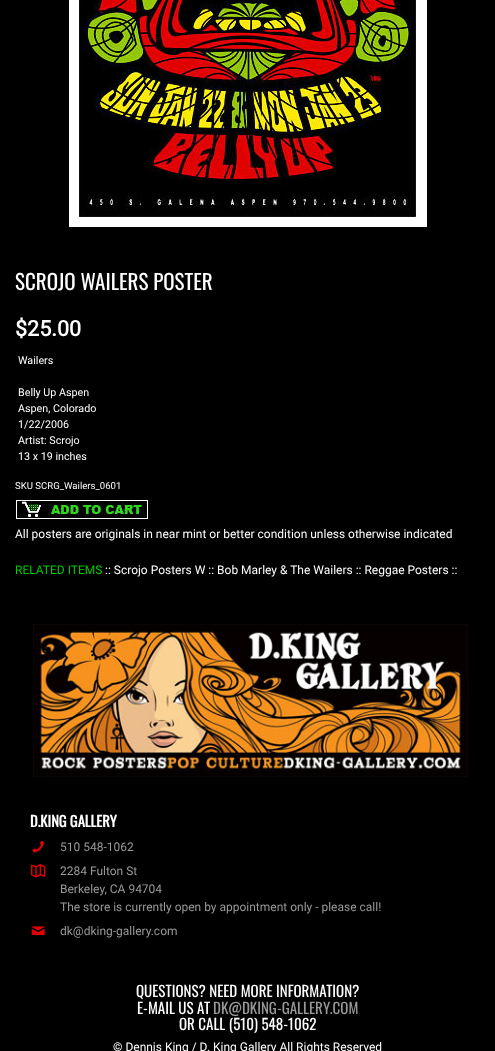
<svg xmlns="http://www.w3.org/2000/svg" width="495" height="1051">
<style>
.a{font:21px Oswald;fill:#fff}
.b{font:bold 21.5px Roboto;fill:#fff}
.c{font:10.75px Roboto;fill:#fff}
.d{font:9.6px Roboto;fill:#fff}
.e{font:12px Roboto;fill:#fff}
.f{font:12px Roboto;fill:#0c0}
.g{font:bold 14.5px Oswald;fill:#fff}
.h{font:12px Roboto;fill:#999}
.i{font:15px Oswald;fill:#fff}
.j{font:15px Oswald;fill:#999}
</style>
<rect width="100%" height="100%" fill="#000"/>
<image href="1.png" x="69" y="0" width="358" height="227"/>
<image href="2.png" x="16" y="500" width="132" height="19"/>
<image href="3.png" x="33" y="624" width="435" height="153"/>
<image href="4.png" x="32" y="840" width="12" height="13"/>
<image href="5.png" x="31" y="864" width="15" height="14"/>
<image href="6.png" x="31" y="926" width="14" height="9"/>
<text class="a" x="15" y="290">SCROJO WAILERS POSTER</text>
<text class="b" x="15" y="336">$25.00</text>
<text class="c" x="18" y="364">Wailers</text>
<text class="c" x="18" y="396">Belly Up Aspen</text>
<text class="c" x="18" y="412">Aspen, Colorado</text>
<text class="c" x="18" y="428">1/22/2006</text>
<text class="c" x="18" y="444">Artist: Scrojo</text>
<text class="c" x="18" y="460">13 x 19 inches</text>
<text class="d" x="15" y="489">SKU SCRG_Wailers_0601</text>
<text class="e" x="15" y="538">All posters are originals in near mint or better condition unless otherwise indicated</text>
<text class="f" x="15" y="574">RELATED ITEMS</text>
<text class="e" x="105" y="574">:: Scrojo Posters W :: Bob Marley &amp; The Wailers :: Reggae Posters ::</text>
<text class="g" x="30" y="827">D.KING GALLERY</text>
<text class="h" x="60" y="851">510 548-1062</text>
<text class="h" x="60" y="875">2284 Fulton St</text>
<text class="h" x="60" y="893">Berkeley, CA 94704</text>
<text class="h" x="60" y="911">The store is currently open by appointment only - please call!</text>
<text class="h" x="60" y="935">dk@dking-gallery.com</text>
<text class="i" x="136" y="997">QUESTIONS? NEED MORE INFORMATION?</text>
<text class="i" x="137" y="1014">E-MAIL US AT</text>
<text class="j" x="213" y="1014">DK@DKING-GALLERY.COM</text>
<text class="i" x="179" y="1030">OR CALL (510) 548-1062</text>
<text class="e" x="113" y="1051">© Dennis King / D. King Gallery All Rights Reserved</text>
</svg>
